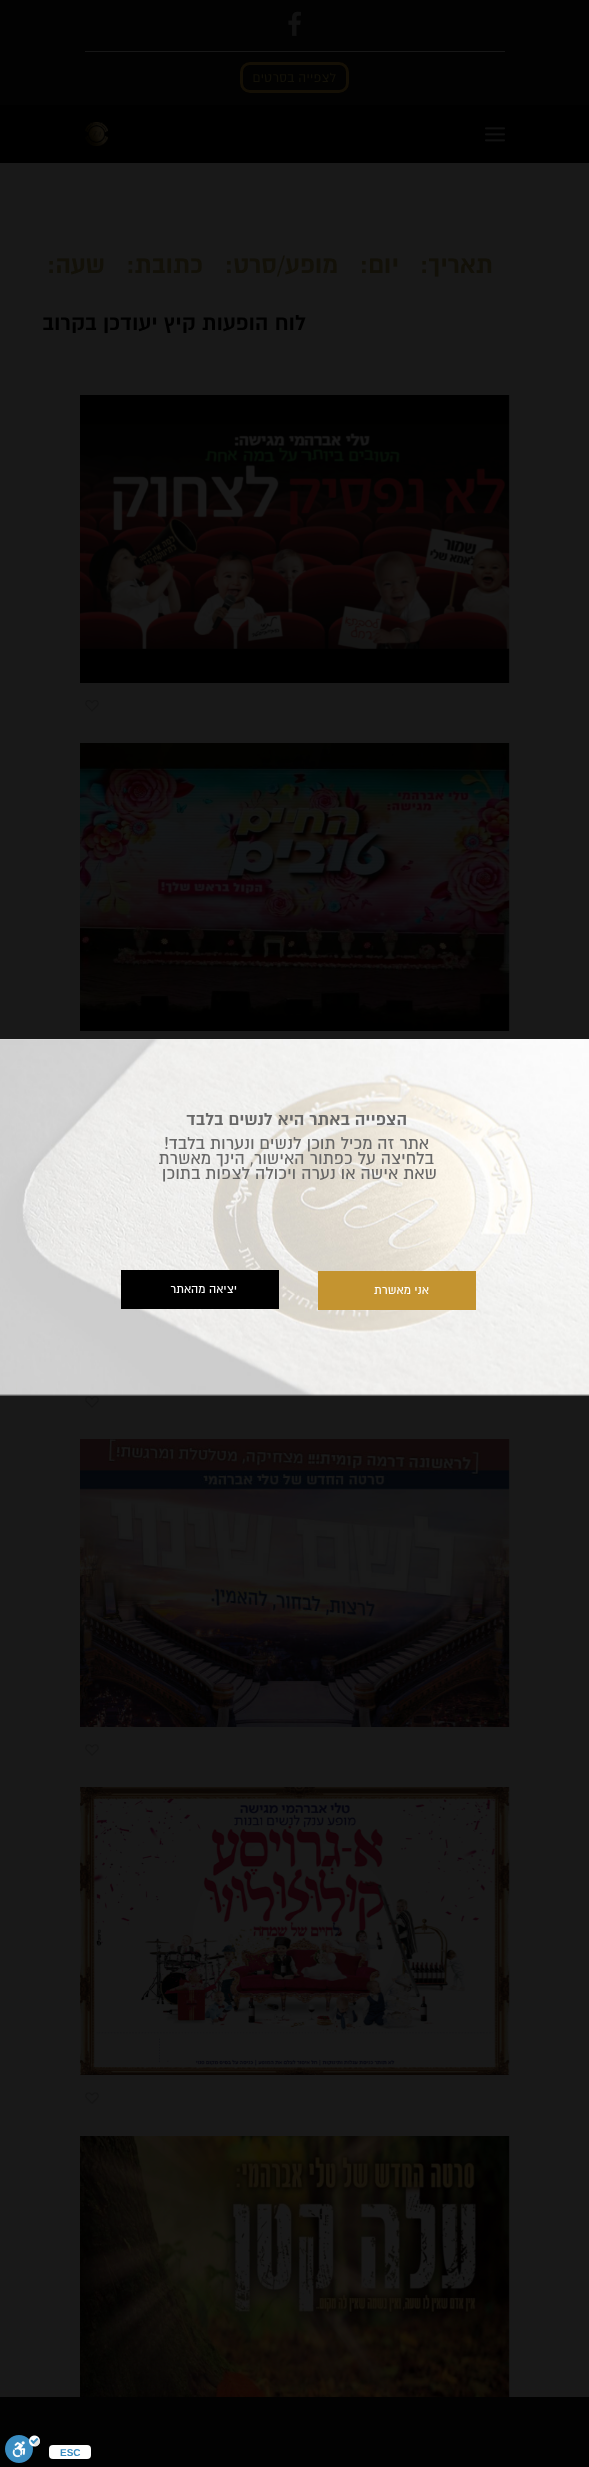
<svg xmlns="http://www.w3.org/2000/svg" width="589" height="2467">
<style>
.a{font:15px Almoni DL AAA;direction:rtl;fill:#121008}
.b{font:bold 28px Almoni DL AAA;direction:rtl;fill:#121008}
.c{font:bold 24px Almoni DL AAA;direction:rtl;fill:#000}
.d{font:bold 19.25px Almoni DL AAA;direction:rtl;fill:#676767}
.e{font:19.25px Almoni DL AAA;direction:rtl;fill:#676767}
.f{font:13.5px Almoni DL AAA;direction:rtl;fill:#fff}
.g{font:bold 10px Liberation Sans;fill:#3a8dc2}
</style>
<rect width="100%" height="100%" fill="#191919"/>
<path fill="#020202" d="M0 0h589v105H0z"/>
<image href="1.png" x="288" y="11" width="13" height="25"/>
<path fill="#161616" d="M85 51h420v1H85z"/>
<rect fill="none" stroke="#140f05" stroke-width="3" x="241.5" y="63.5" width="106" height="28" rx="8.5"/>
<path fill="#000" d="M0 105h589v58H0z"/>
<image href="2.png" x="485" y="127" width="20" height="15"/>
<image href="3.png" x="84" y="122" width="24" height="24"/>
<image href="4.png" x="80" y="395" width="430" height="288"/>
<image href="5.png" x="85" y="700" width="14" height="12"/>
<image href="6.png" x="80" y="743" width="430" height="288"/>
<image href="7.png" x="85" y="1396" width="14" height="12"/>
<image href="8.png" x="80" y="1439" width="430" height="288"/>
<image href="9.png" x="85" y="1744" width="14" height="12"/>
<image href="10.png" x="80" y="1787" width="430" height="288"/>
<image href="11.png" x="85" y="2092" width="14" height="12"/>
<image href="12.png" x="80" y="2136" width="430" height="261"/>
<image href="13.png" x="0" y="1039" width="589" height="357"/>
<path fill="#c49430" d="M318 1271h158v39H318z"/>
<path fill="#000" d="M121 1270h158v39H121z"/>
<path fill="#020202" d="M0 2397h589v70H0z"/>
<rect fill="#fff" x="49" y="2445" width="42" height="14" rx="4"/>
<image href="14.png" x="5" y="2435" width="35" height="28"/>
<text class="a" x="336" y="82">לצפייה בסרטים</text>
<text class="b" x="493" y="273">תאריך:</text>
<text class="b" x="399" y="273">יום:</text>
<text class="b" x="338" y="273">מופע/סרט:</text>
<text class="b" x="203" y="273">כתובת:</text>
<text class="b" x="105" y="273">שעה:</text>
<text class="c" x="306" y="330">לוח הופעות קיץ יעודכן בקרוב</text>
<text class="d" x="407" y="1125">הצפייה באתר היא לנשים בלבד</text>
<text class="e" x="429" y="1149">אתר זה מכיל תוכן לנשים ונערות בלבד!</text>
<text class="e" x="434" y="1164">בלחיצה על כפתור האישור, הינך מאשרת</text>
<text class="e" x="437" y="1179">שאת אישה או נערה ויכולה לצפות בתוכן</text>
<text class="f" x="429" y="1294">אני מאשרת</text>
<text class="f" x="237" y="1293">יציאה מהאתר</text>
<text class="g" x="60" y="2456">ESC</text>
</svg>
